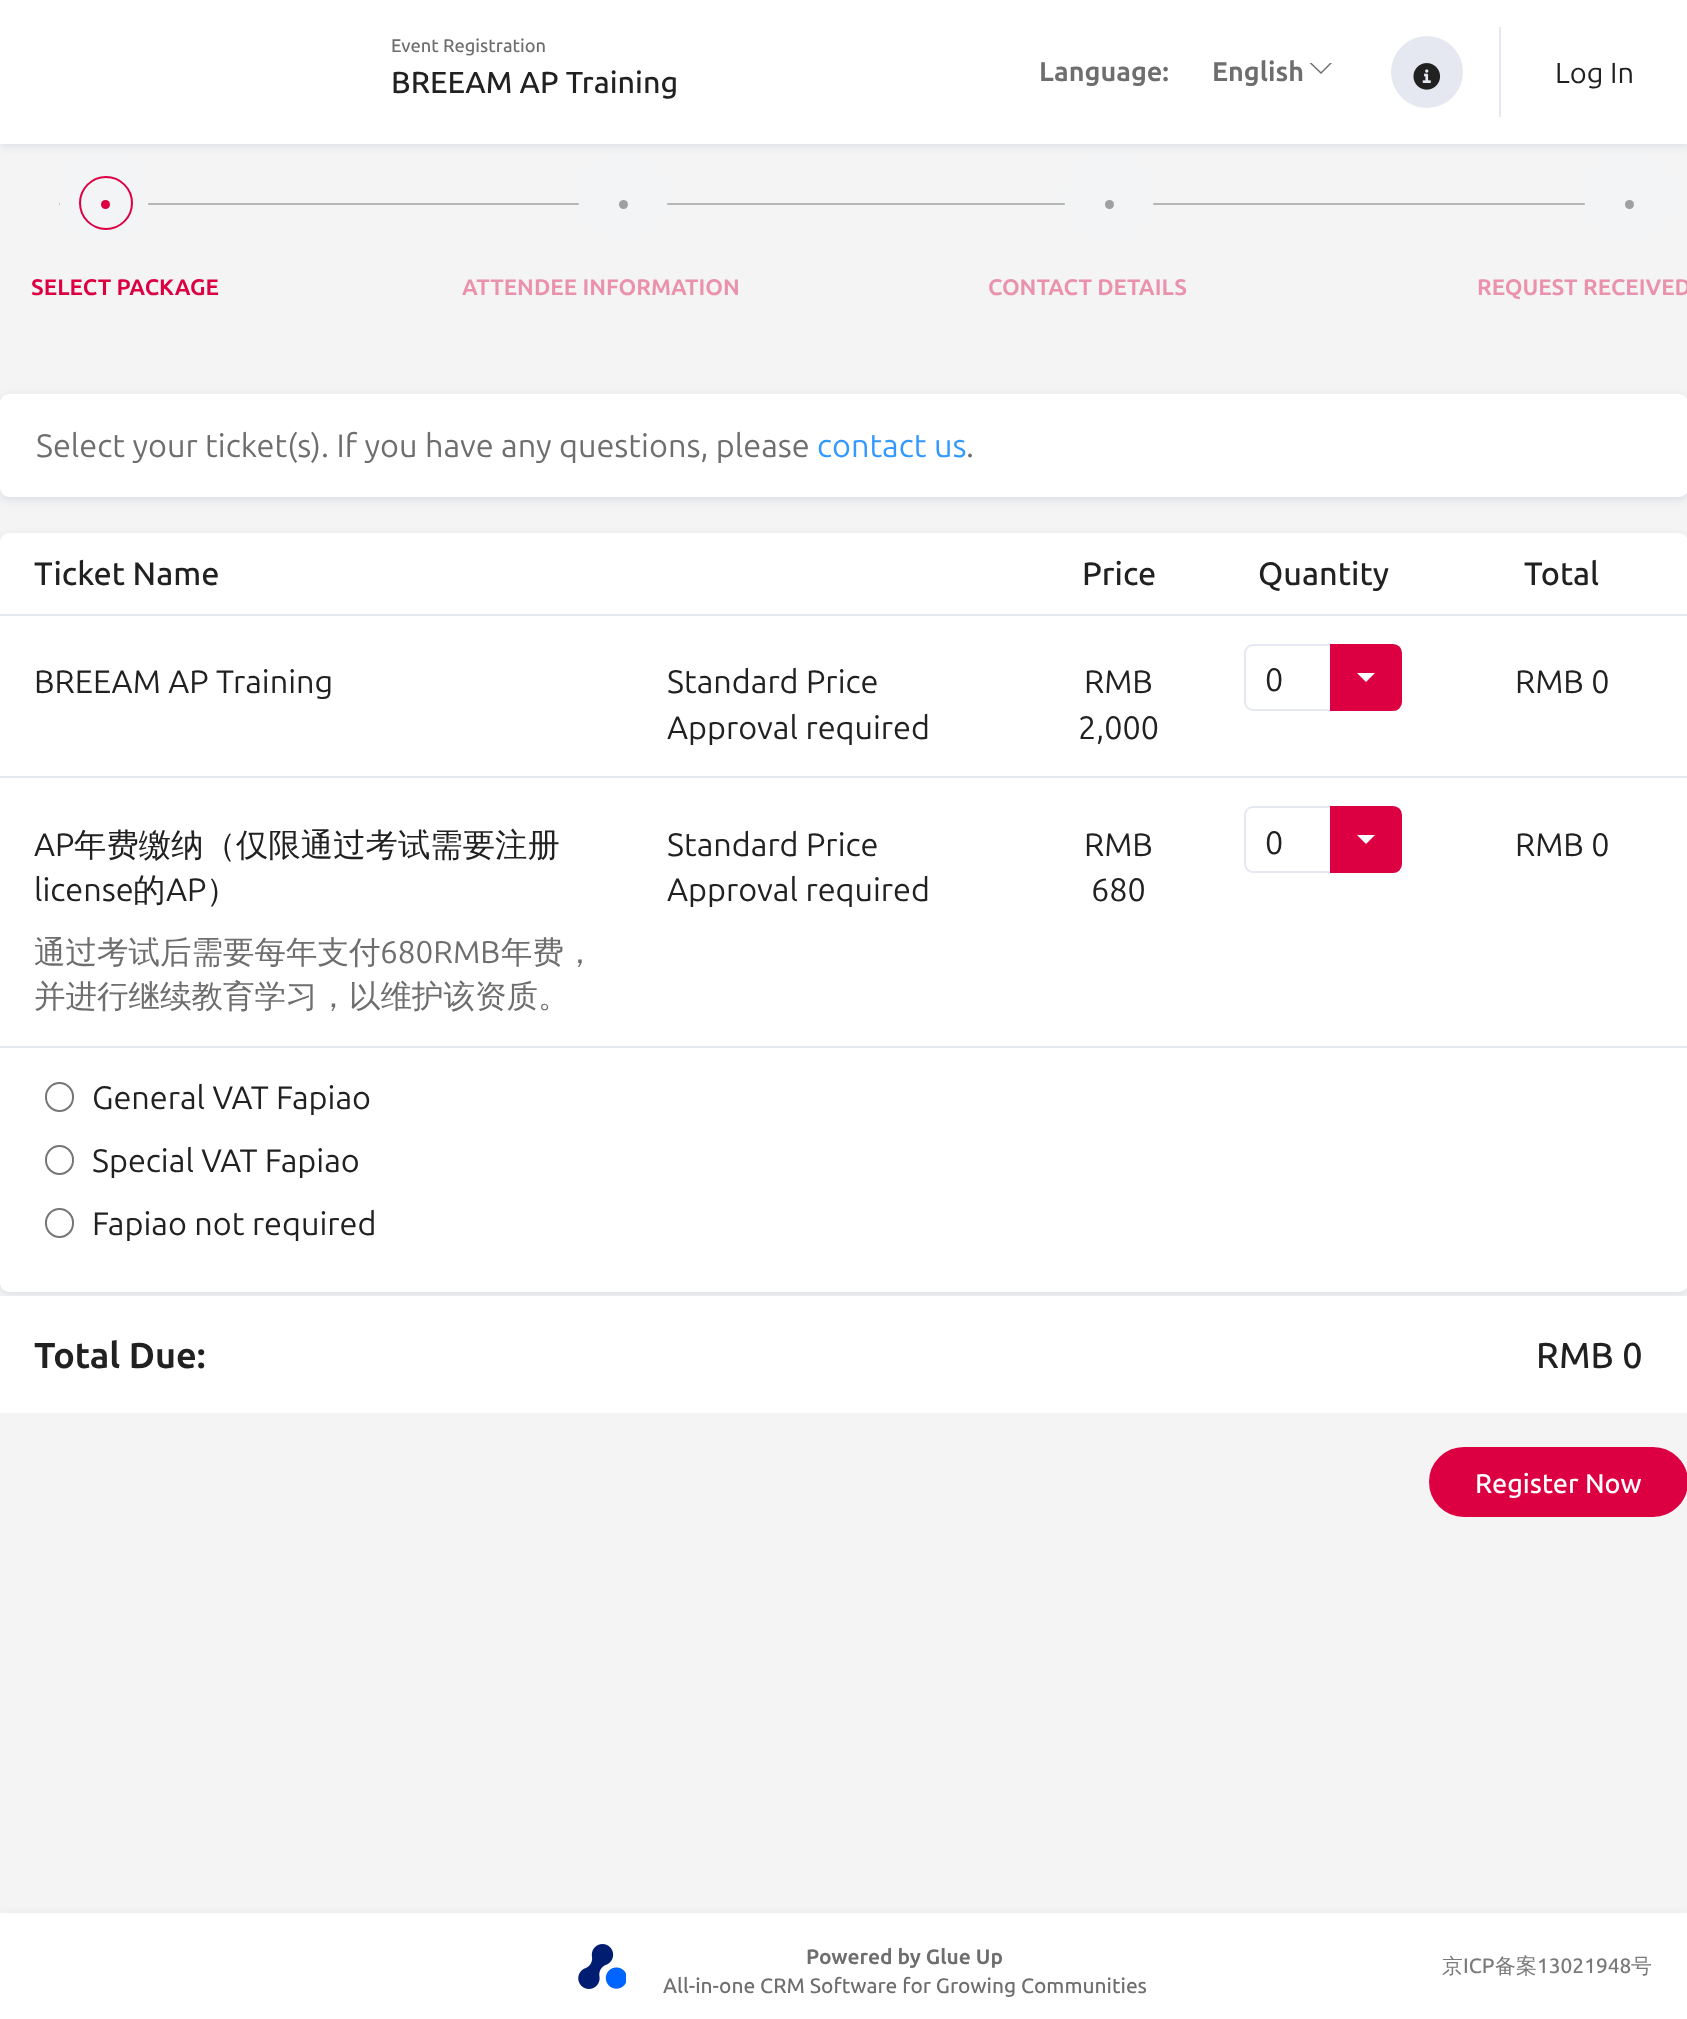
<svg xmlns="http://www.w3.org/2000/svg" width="1687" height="2019">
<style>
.a{font:500 18.25px Ubuntu;fill:#6e6e6e}
.b{font:500 30.4px Ubuntu;fill:#212121}
.c{font:bold 27px Ubuntu;fill:#6e6e6e}
.d{font:29px Ubuntu;fill:#212121}
.e{font:bold 22.5px Ubuntu;fill:#dc0043}
.f{font:bold 22.5px Ubuntu;fill:#ea92ad}
.g{font:32.4px Ubuntu;fill:#6e6e6e}
.h{font:32.4px Ubuntu;fill:#39f}
.i{font:500 32.4px Ubuntu;fill:#212121}
.j{font:32.4px Ubuntu;fill:#212121}
.k{font:500 32.4px WenQuanYi Zen Hei;fill:#212121}
.l{font:500 31.5px WenQuanYi Zen Hei;fill:#6e6e6e}
.m{font:31.5px Ubuntu;fill:#6e6e6e}
.n{font:bold 36px Ubuntu;fill:#212121}
.o{font:500 36px Ubuntu;fill:#212121}
.p{font:500 27px Ubuntu;fill:#fff}
.q{font:bold 20.9px Ubuntu;fill:#6e6e6e}
.r{font:500 20.9px Ubuntu;fill:#6e6e6e}
.s{font:500 20.9px WenQuanYi Zen Hei;fill:#7a7a7a}
.t{font:500 20.9px Ubuntu;fill:#7a7a7a}
</style>
<rect width="100%" height="100%" fill="#f4f4f4"/>
<path fill="#b5b5b5" d="M59 203h1526v2H59z"/>
<circle fill="#f2f4f6" cx="104" cy="196" r="45"/>
<circle fill="#f2f4f6" cx="623" cy="196" r="45"/>
<circle fill="#f2f4f6" cx="1109" cy="196" r="45"/>
<circle fill="#f2f4f6" cx="1629" cy="196" r="45"/>
<path fill="#001c6c1a" filter="blur(4.5px)" d="M0 2h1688v144H0z"/>
<path fill="#fff" d="M0 0h1687v144H0z"/>
<path fill="#6e6e6e" d="M1309.5 63h22.5l-11 11z"/>
<path fill="#fff" d="M1309.5 61h22.5l-11 11z"/>
<circle fill="#e5e8f0" cx="1427" cy="72" r="36"/>
<image href="1.png" x="1413" y="63" width="28" height="27"/>
<path fill="#e5e8f0" d="M1499 27h2v90H1499z"/>
<circle fill="#dc0043" cx="105.5" cy="204.5" r="4.5"/>
<circle fill="none" stroke="#dc0043" stroke-width="2" cx="106" cy="203" r="26"/>
<circle fill="#9ea0a1" cx="623.5" cy="204.5" r="4.5"/>
<circle fill="#9ea0a1" cx="1109.5" cy="204.5" r="4.5"/>
<circle fill="#9ea0a1" cx="1629.5" cy="204.5" r="4.5"/>
<rect fill="#001c6c1a" filter="blur(4.5px)" y="396" width="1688" height="104" rx="9"/>
<rect fill="#fff" y="394" width="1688" height="103" rx="9"/>
<rect fill="#001c6c1a" filter="blur(4.5px)" y="536" width="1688" height="758" rx="9"/>
<rect fill="#fff" y="533" width="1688" height="759" rx="9"/>
<path fill="#e4e8f1" d="M0 614h1687v2H0z"/>
<rect fill="none" stroke="#e5e8f0" stroke-width="2" x="1245" y="645" width="156" height="65" rx="8"/>
<path fill="#dc0043" stroke="#dc0043" stroke-width="2" d="M1331 645h62c4.5 0 8 3.5 8 8v49c0 4.5-3.5 8-8 8h-62z"/>
<path fill="#fff" d="M1357 673h18l-9 9z"/>
<path fill="#e4e8f1" d="M0 776h1687v2H0z"/>
<rect fill="none" stroke="#e5e8f0" stroke-width="2" x="1245" y="807" width="156" height="65" rx="8"/>
<path fill="#dc0043" stroke="#dc0043" stroke-width="2" d="M1331 807h62c4.5 0 8 3.5 8 8v49c0 4.5-3.5 8-8 8h-62z"/>
<path fill="#fff" d="M1357 835h18l-9 9z"/>
<path fill="#e4e8f1" d="M0 1046h1687v2H0z"/>
<rect fill="none" stroke="#767676" stroke-width="2" x="46" y="1083" width="27" height="28" rx="13.5"/>
<rect fill="none" stroke="#767676" stroke-width="2" x="46" y="1146" width="27" height="28" rx="13.5"/>
<rect fill="none" stroke="#767676" stroke-width="2" x="46" y="1209" width="27" height="28" rx="13.5"/>
<path fill="#fff" d="M0 1296h1687v117H0z"/>
<rect fill="#dc0043" stroke="#dc0043" stroke-width="2" x="1430" y="1448" width="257" height="68" rx="34"/>
<path fill="#001c6c1a" filter="blur(4.5px)" d="M0 1915h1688v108H0z"/>
<path fill="#fff" d="M0 1913h1687v106H0z"/>
<image href="2.png" x="578" y="1944" width="48" height="45"/>
<text class="a" x="391" y="52">Event Registration</text>
<text class="b" x="391" y="93">BREEAM AP Training</text>
<text class="c" x="1039" y="81">Language:</text>
<text class="c" x="1212" y="81">English</text>
<text class="d" x="1555" y="83">Log In</text>
<text class="e" x="31" y="295">SELECT PACKAGE</text>
<text class="f" x="462" y="295">ATTENDEE INFORMATION</text>
<text class="f" x="988" y="295">CONTACT DETAILS</text>
<text class="f" x="1477" y="295">REQUEST RECEIVED</text>
<text class="g" x="36" y="457">Select your ticket(s). If you have any questions, please</text>
<text class="h" x="817" y="457">contact us</text>
<text class="g" x="966" y="457">.</text>
<text class="i" x="34" y="585">Ticket Name</text>
<text class="i" x="1082" y="585">Price</text>
<text class="i" x="1258" y="585">Quantity</text>
<text class="i" x="1524" y="585">Total</text>
<text class="j" x="34" y="693">BREEAM AP Training</text>
<text class="j" x="667" y="693">Standard Price</text>
<text class="j" x="667" y="739">Approval required</text>
<text class="j" x="1084" y="693">RMB</text>
<text class="j" x="1078" y="739">2,000</text>
<text class="j" x="1265" y="691">0</text>
<text class="j" x="1515" y="693">RMB 0</text>
<text class="j" x="34" y="856">AP</text>
<text class="k" x="74" y="856">年费缴纳（仅限通过考试需要注册</text>
<text class="j" x="34" y="901">license</text>
<text class="k" x="133" y="901">的</text>
<text class="j" x="166" y="901">AP</text>
<text class="k" x="206" y="901">）</text>
<text class="l" x="34" y="963">通过考试后需要每年支付</text>
<text class="m" x="380" y="963">680RMB</text>
<text class="l" x="501" y="963">年费，</text>
<text class="l" x="34" y="1007">并进行继续教育学习，以维护该资质。</text>
<text class="j" x="667" y="856">Standard Price</text>
<text class="j" x="667" y="901">Approval required</text>
<text class="j" x="1084" y="856">RMB</text>
<text class="j" x="1091" y="901">680</text>
<text class="j" x="1265" y="854">0</text>
<text class="j" x="1515" y="856">RMB 0</text>
<text class="j" x="92" y="1109">General VAT Fapiao</text>
<text class="j" x="92" y="1172">Special VAT Fapiao</text>
<text class="j" x="92" y="1235">Fapiao not required</text>
<text class="n" x="34" y="1368">Total Due:</text>
<text class="o" x="1536" y="1368">RMB 0</text>
<text class="p" x="1475" y="1493">Register Now</text>
<text class="q" x="806" y="1964">Powered by Glue Up</text>
<text class="r" x="663" y="1993">All-in-one CRM Software for Growing Communities</text>
<text class="s" x="1442" y="1973">京</text>
<text class="t" x="1463" y="1973">ICP</text>
<text class="s" x="1495" y="1973">备案</text>
<text class="t" x="1537" y="1973">13021948</text>
<text class="s" x="1631" y="1973">号</text>
</svg>
